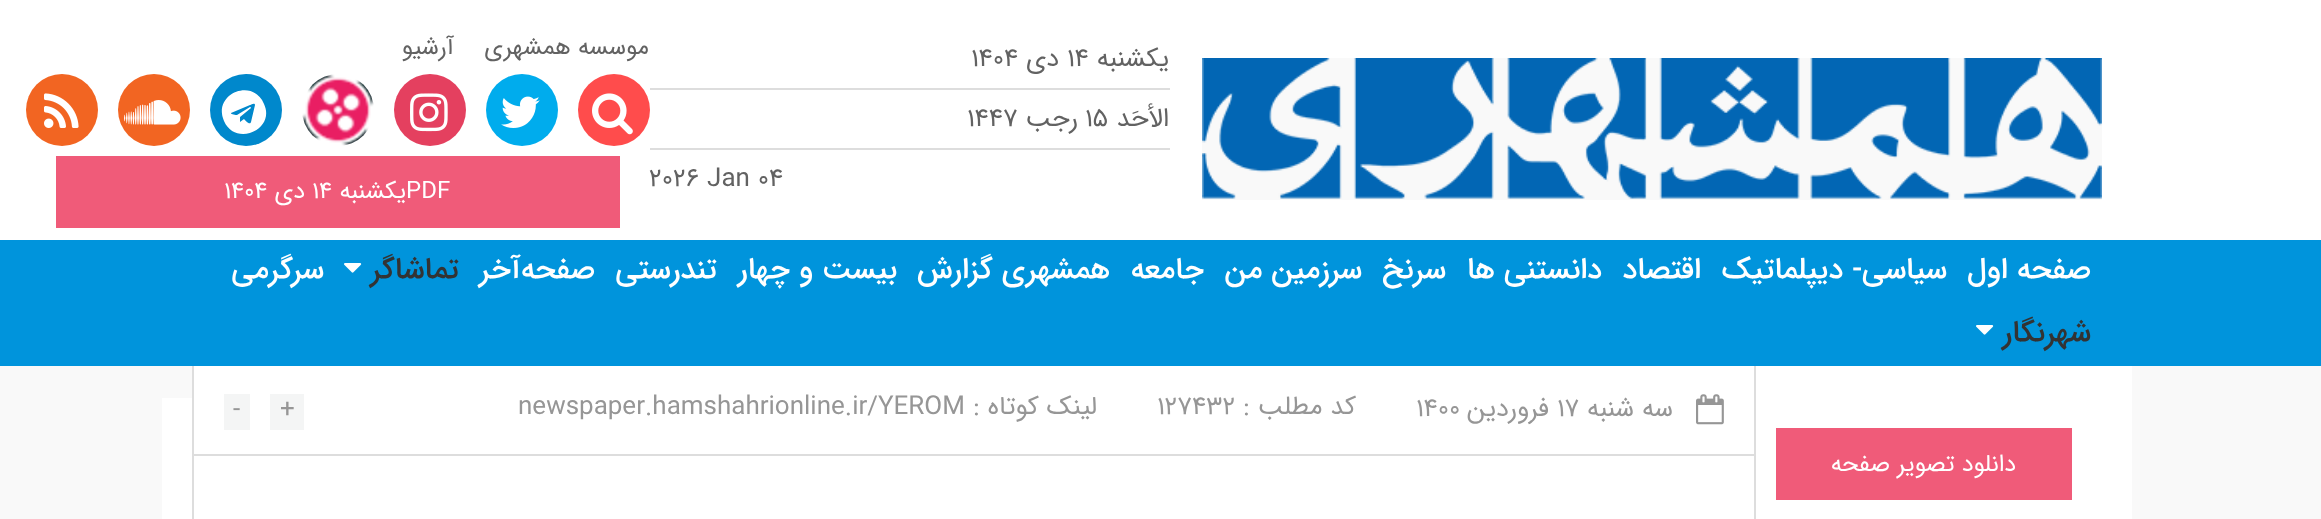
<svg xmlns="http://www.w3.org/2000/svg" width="2321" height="519">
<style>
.a{font:26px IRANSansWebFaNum;direction:rtl;fill:#626262}
.b{font:26px IRANSansWebFaNum;fill:#626262}
.c{font:24px IRANSansWebFaNum;direction:rtl;fill:#626262}
.d{font:24px IRANSansWebFaNum;fill:#fff}
.e{font:24px IRANSansWebFaNum;direction:rtl;fill:#fff}
.f{font:500 30px IRANSansWebFaNum;direction:rtl;fill:#fff}
.g{font:500 30px IRANSansWebFaNum;direction:rtl;fill:#333}
.h{font:26px IRANSansWebFaNum;direction:rtl;fill:#969696}
.i{font:26px IRANSansWebFaNum;fill:#969696}
</style>
<rect width="100%" height="100%" fill="#fff"/>
<image href="1.png" x="1202" y="58" width="900" height="142"/>
<path fill="#ddd" d="M650 88h520v2H650z"/>
<path fill="#ddd" d="M650 148h520v2H650z"/>
<circle fill="#ff4c4c" cx="614" cy="110" r="36"/>
<image href="2.png" x="592" y="93" width="41" height="42"/>
<circle fill="#00aced" cx="522" cy="110" r="36"/>
<image href="3.png" x="501" y="96" width="39" height="32"/>
<circle fill="#e4405f" cx="430" cy="110" r="36"/>
<image href="4.png" x="410" y="93" width="38" height="39"/>
<image href="5.png" x="302" y="74" width="72" height="72"/>
<circle fill="#08c" cx="246" cy="110" r="36"/>
<path fill="#fff" d="M251 122l4-17c0-3-5 0-5 0l-19 8c-1 1 5 2 6 2l13-8c0 0 1 0 1 1l-11 9v5l4-3c1 1 6 7 7 3zm13-18c12 26-29 43-40 17c-12-27 29-44 40-17z"/>
<circle fill="#f26522" cx="154" cy="110" r="36"/>
<image href="6.png" x="124" y="100" width="57" height="25"/>
<circle fill="#f26522" cx="62" cy="110" r="36"/>
<image href="7.png" x="44" y="93" width="35" height="35"/>
<path fill="#f05b79" d="M56 156h564v72H56z"/>
<path fill="#0094dc" d="M0 240h2321v126H0z"/>
<image href="8.png" x="344" y="263" width="18" height="10"/>
<image href="8.png" x="1976" y="325" width="18" height="10"/>
<path fill="#f9f9f9" d="M0 366h2321v153H0z"/>
<path fill="#fff" d="M194 366h1938v153H194z"/>
<path fill="#fff" d="M162 398h32v121H162z"/>
<path fill="#ddd" d="M192 366h2v153H192z"/>
<path fill="#ddd" d="M194 454h1560v2H194z"/>
<image href="9.png" x="1696" y="394" width="28" height="31"/>
<path fill="#f4f5f5" d="M270 394h34v36H270z"/>
<path fill="#f4f5f5" d="M224 394h26v36H224z"/>
<path fill="#ddd" d="M1754 366h2v153H1754z"/>
<path fill="#f05b79" d="M1776 428h296v72H1776z"/>
<text class="a" x="1169" y="66">یکشنبه</text>
<text class="b" x="1067" y="66">14</text>
<text class="a" x="1059" y="66">دی</text>
<text class="b" x="971" y="66">1404</text>
<text class="a" x="1169" y="126">الأحَد</text>
<text class="b" x="1085" y="126">15</text>
<text class="a" x="1078" y="126">رجب</text>
<text class="b" x="967" y="126">1447</text>
<text class="b" x="649" y="186">2026 Jan 04</text>
<text class="c" x="649" y="54">موسسه همشهری</text>
<text class="c" x="454" y="54">آرشیو</text>
<text class="d" x="406" y="198">PDF</text>
<text class="e" x="406" y="198">یکشنبه</text>
<text class="d" x="312" y="198">14</text>
<text class="e" x="305" y="198">دی</text>
<text class="d" x="224" y="198">1404</text>
<text class="f" x="2091" y="278">صفحه اول</text>
<text class="f" x="1947" y="278">سیاسی- دیپلماتیک</text>
<text class="f" x="1701" y="278">اقتصاد</text>
<text class="f" x="1602" y="278">دانستنی ها</text>
<text class="f" x="1446" y="278">سرنخ</text>
<text class="f" x="1362" y="278">سرزمین من</text>
<text class="f" x="1204" y="278">جامعه</text>
<text class="f" x="1110" y="278">همشهری گزارش</text>
<text class="f" x="897" y="278">بیست و چهار</text>
<text class="f" x="717" y="278">تندرستی</text>
<text class="f" x="595" y="278">صفحه‌آخر</text>
<text class="g" x="459" y="278">تماشاگر</text>
<text class="f" x="324" y="278">سرگرمی</text>
<text class="g" x="2091" y="341">شهرنگار</text>
<text class="h" x="1673" y="416">سه شنبه</text>
<text class="i" x="1557" y="416">17</text>
<text class="h" x="1549" y="416">فروردین</text>
<text class="i" x="1416" y="416">1400</text>
<text class="h" x="1356" y="414">کد مطلب :</text>
<text class="i" x="1157" y="414">127432</text>
<text class="h" x="1097" y="414">لینک کوتاه :</text>
<text class="i" x="518" y="414">newspaper.hamshahrionline.ir/YEROM</text>
<text class="i" x="280" y="417">+</text>
<text class="i" x="233" y="417">-</text>
<text class="e" x="2016" y="471">دانلود تصویر صفحه</text>
</svg>
